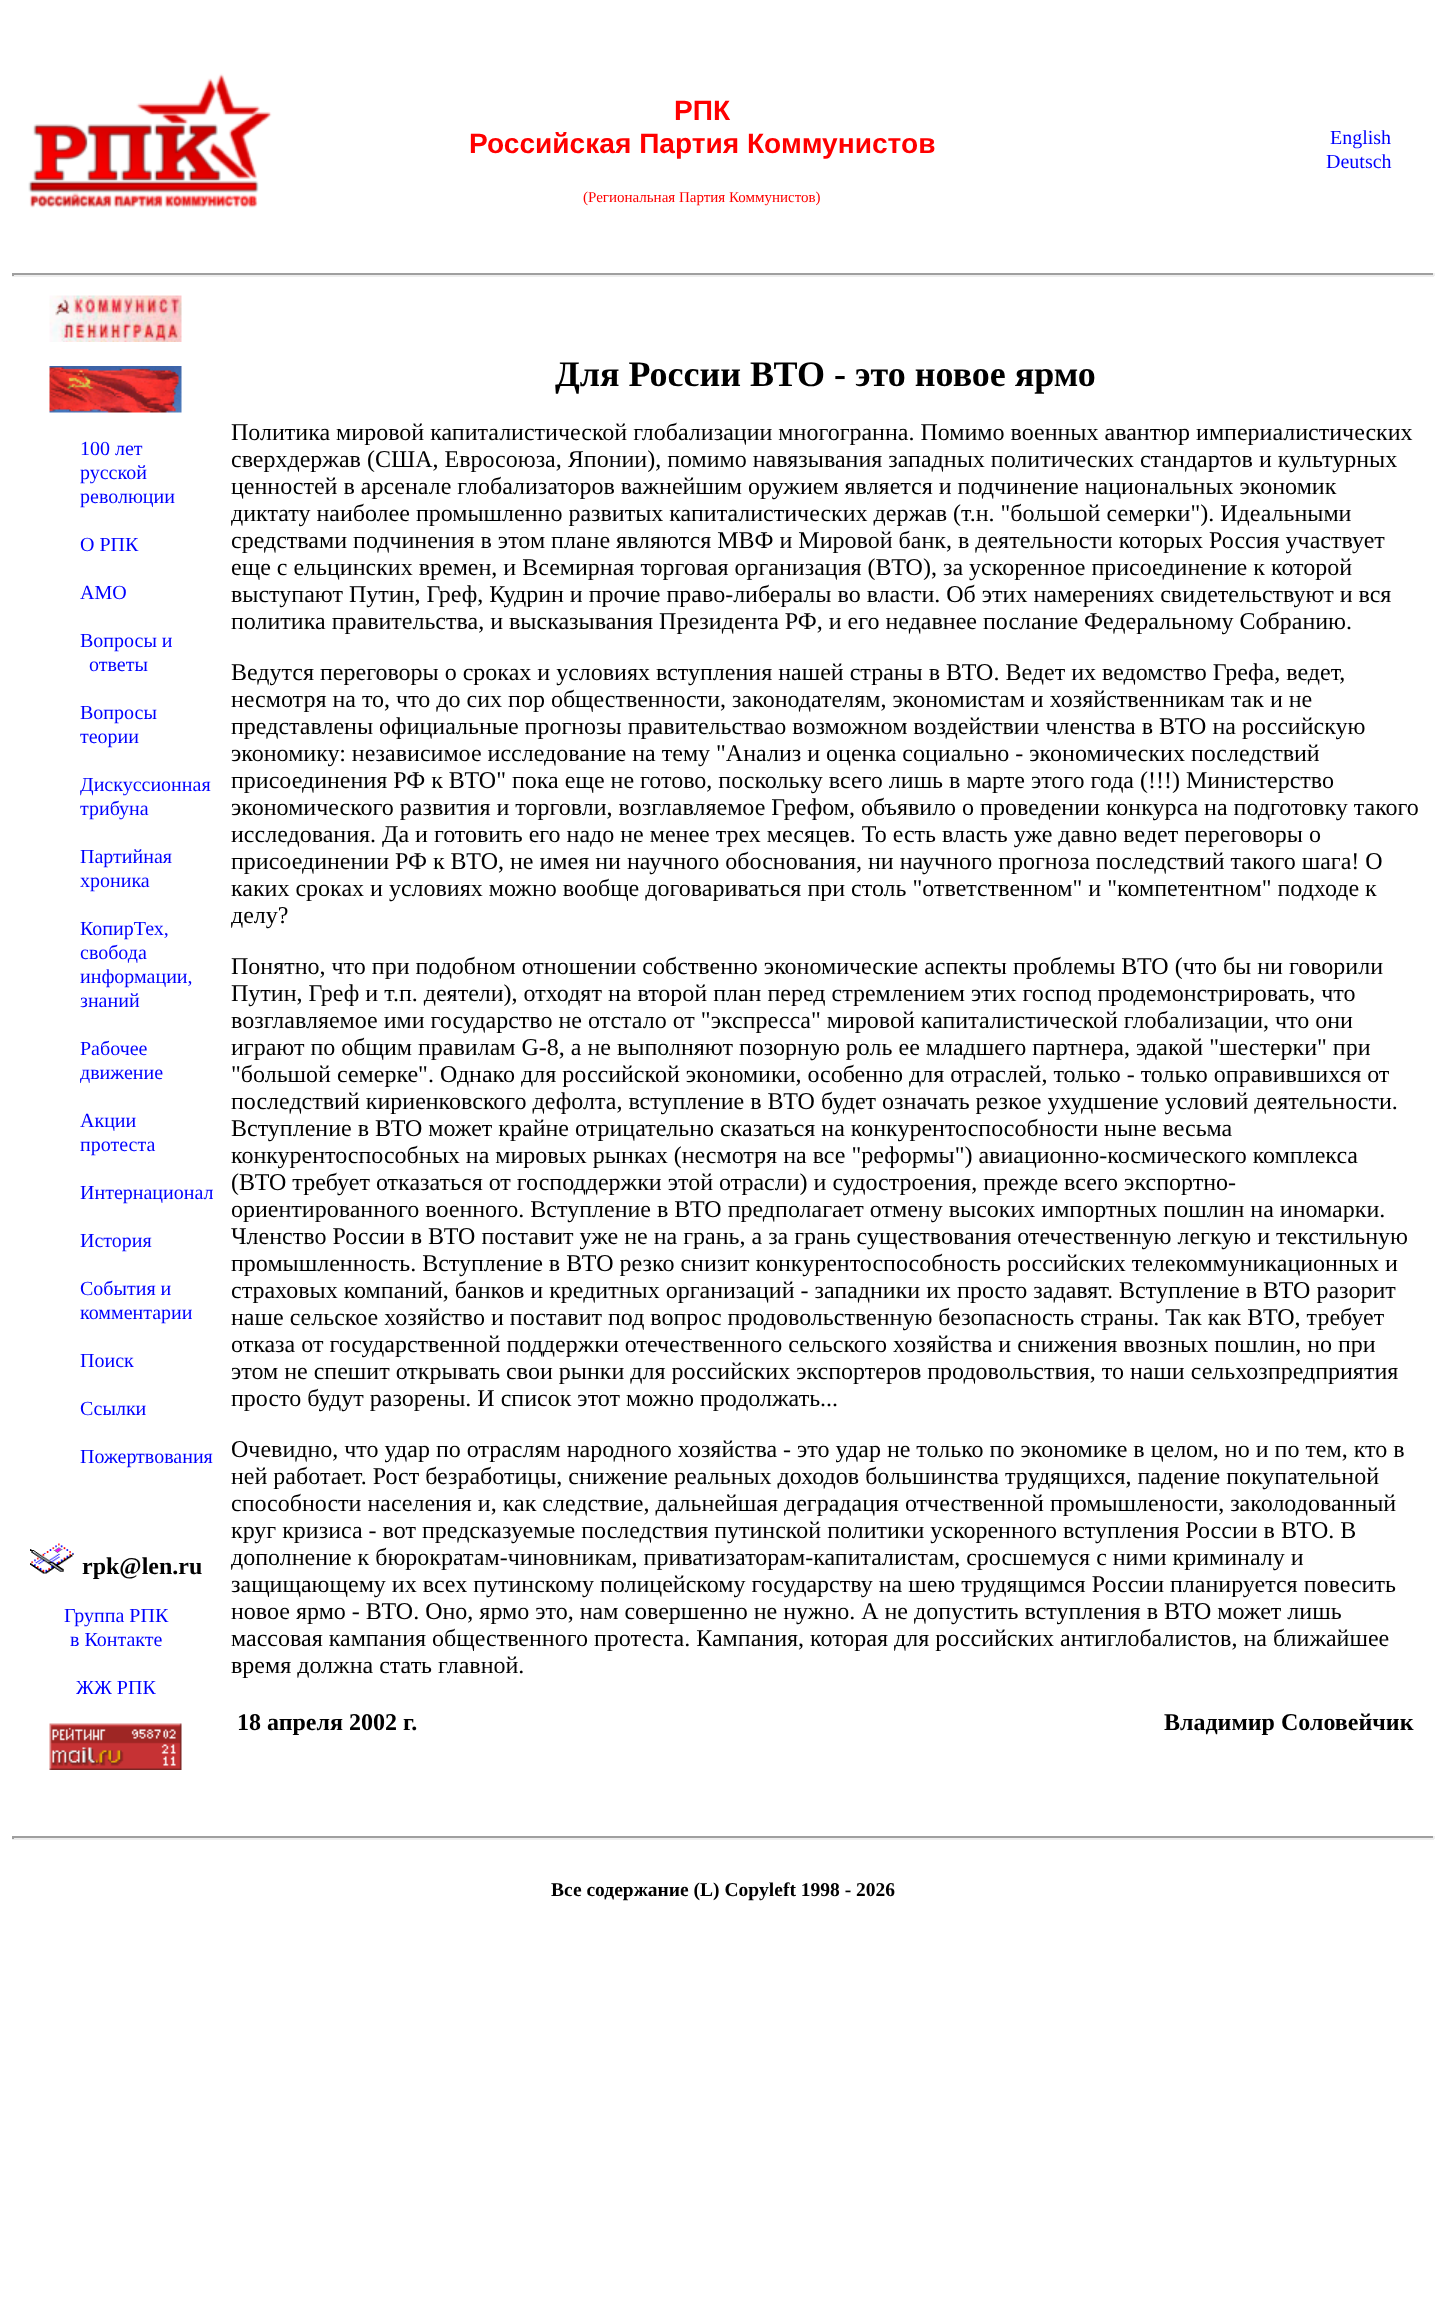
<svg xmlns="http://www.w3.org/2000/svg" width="1445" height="2320">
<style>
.a{font:bold 28.1px Liberation Sans;fill:#f00}
.b{font:15px Liberation Serif;fill:#f00}
.c{font:20px Liberation Serif;fill:#00f}
.d{font:bold 24px Liberation Serif;fill:#000}
.e{font:bold 36px Liberation Serif;fill:#000}
.f{font:24px Liberation Serif;fill:#000}
.g{font:bold 19.5px Liberation Serif;fill:#000}
</style>
<rect width="100%" height="100%" fill="#fff"/>
<image href="1.png" x="28" y="73" width="244" height="135"/>
<path fill="#9f9f9f" d="M12 273h1422v2H12z"/>
<path fill="#eee" d="M1433 273h2v3H1433z"/>
<path fill="#eee" d="M12 275h1422v2H12z"/>
<path fill="#9f9f9f" d="M12 273h2v3H12z"/>
<image href="2.png" x="49" y="295" width="133" height="47"/>
<image href="3.png" x="49" y="366" width="133" height="47"/>
<image href="4.png" x="30" y="1543" width="44" height="31"/>
<image href="5.png" x="49" y="1723" width="133" height="47"/>
<path fill="#9f9f9f" d="M12 1836h1422v2H12z"/>
<path fill="#eee" d="M1433 1836h2v3H1433z"/>
<path fill="#eee" d="M12 1838h1422v2H12z"/>
<path fill="#9f9f9f" d="M12 1836h2v3H12z"/>
<text class="a" x="674" y="120">РПК</text>
<text class="a" x="469" y="153">Российская Партия Коммунистов</text>
<text class="b" x="583" y="202">(Региональная Партия Коммунистов)</text>
<text class="c" x="1330" y="144">English</text>
<text class="c" x="1326" y="168">Deutsch</text>
<text class="c" x="80" y="455">100 лет</text>
<text class="c" x="80" y="479">русской</text>
<text class="c" x="80" y="503">революции</text>
<text class="c" x="80" y="551">О РПК</text>
<text class="c" x="80" y="599">АМО</text>
<text class="c" x="80" y="647">Вопросы и</text>
<text class="c" x="89" y="671">ответы</text>
<text class="c" x="80" y="719">Вопросы</text>
<text class="c" x="80" y="743">теории</text>
<text class="c" x="80" y="791">Дискуссионная</text>
<text class="c" x="80" y="815">трибуна</text>
<text class="c" x="80" y="863">Партийная</text>
<text class="c" x="80" y="887">хроника</text>
<text class="c" x="80" y="935">КопирТех,</text>
<text class="c" x="80" y="959">свобода</text>
<text class="c" x="80" y="983">информации,</text>
<text class="c" x="80" y="1007">знаний</text>
<text class="c" x="80" y="1055">Рабочее</text>
<text class="c" x="80" y="1079">движение</text>
<text class="c" x="80" y="1127">Акции</text>
<text class="c" x="80" y="1151">протеста</text>
<text class="c" x="80" y="1199">Интернационал</text>
<text class="c" x="80" y="1247">История</text>
<text class="c" x="80" y="1295">События и</text>
<text class="c" x="80" y="1319">комментарии</text>
<text class="c" x="80" y="1367">Поиск</text>
<text class="c" x="80" y="1415">Ссылки</text>
<text class="c" x="80" y="1463">Пожертвования</text>
<text class="d" x="82" y="1574">rpk@len.ru</text>
<text class="c" x="64" y="1622">Группа РПК</text>
<text class="c" x="70" y="1646">в Контакте</text>
<text class="c" x="76" y="1694">ЖЖ РПК</text>
<text class="e" x="555" y="386">Для России ВТО - это новое ярмо</text>
<text class="f" x="231" y="440">Политика мировой капиталистической глобализации многогранна. Помимо военных авантюр империалистических</text>
<text class="f" x="231" y="467">сверхдержав (США, Евросоюза, Японии), помимо навязывания западных политических стандартов и культурных</text>
<text class="f" x="231" y="494">ценностей в арсенале глобализаторов важнейшим оружием является и подчинение национальных экономик</text>
<text class="f" x="231" y="521">диктату наиболее промышленно развитых капиталистических держав (т.н. "большой семерки"). Идеальными</text>
<text class="f" x="231" y="548">средствами подчинения в этом плане являются МВФ и Мировой банк, в деятельности которых Россия участвует</text>
<text class="f" x="231" y="575">еще с ельцинских времен, и Всемирная торговая организация (ВТО), за ускоренное присоединение к которой</text>
<text class="f" x="231" y="602">выступают Путин, Греф, Кудрин и прочие право-либералы во власти. Об этих намерениях свидетельствуют и вся</text>
<text class="f" x="231" y="629">политика правительства, и высказывания Президента РФ, и его недавнее послание Федеральному Собранию.</text>
<text class="f" x="231" y="680">Ведутся переговоры о сроках и условиях вступления нашей страны в ВТО. Ведет их ведомство Грефа, ведет,</text>
<text class="f" x="231" y="707">несмотря на то, что до сих пор общественности, законодателям, экономистам и хозяйственникам так и не</text>
<text class="f" x="231" y="734">представлены официальные прогнозы правительствао возможном воздействии членства в ВТО на российскую</text>
<text class="f" x="231" y="761">экономику: независимое исследование на тему "Анализ и оценка социально - экономических последствий</text>
<text class="f" x="231" y="788">присоединения РФ к ВТО" пока еще не готово, поскольку всего лишь в марте этого года (!!!) Министерство</text>
<text class="f" x="231" y="815">экономического развития и торговли, возглавляемое Грефом, объявило о проведении конкурса на подготовку такого</text>
<text class="f" x="231" y="842">исследования. Да и готовить его надо не менее трех месяцев. То есть власть уже давно ведет переговоры о</text>
<text class="f" x="231" y="869">присоединении РФ к ВТО, не имея ни научного обоснования, ни научного прогноза последствий такого шага! О</text>
<text class="f" x="231" y="896">каких сроках и условиях можно вообще договариваться при столь "ответственном" и "компетентном" подходе к</text>
<text class="f" x="231" y="923">делу?</text>
<text class="f" x="231" y="974">Понятно, что при подобном отношении собственно экономические аспекты проблемы ВТО (что бы ни говорили</text>
<text class="f" x="231" y="1001">Путин, Греф и т.п. деятели), отходят на второй план перед стремлением этих господ продемонстрировать, что</text>
<text class="f" x="231" y="1028">возглавляемое ими государство не отстало от "экспресса" мировой капиталистической глобализации, что они</text>
<text class="f" x="231" y="1055">играют по общим правилам G-8, а не выполняют позорную роль ее младшего партнера, эдакой "шестерки" при</text>
<text class="f" x="231" y="1082">"большой семерке". Однако для российской экономики, особенно для отраслей, только - только оправившихся от</text>
<text class="f" x="231" y="1109">последствий кириенковского дефолта, вступление в ВТО будет означать резкое ухудшение условий деятельности.</text>
<text class="f" x="231" y="1136">Вступление в ВТО может крайне отрицательно сказаться на конкурентоспособности ныне весьма</text>
<text class="f" x="231" y="1163">конкурентоспособных на мировых рынках (несмотря на все "реформы") авиационно-космического комплекса</text>
<text class="f" x="231" y="1190">(ВТО требует отказаться от господдержки этой отрасли) и судостроения, прежде всего экспортно-</text>
<text class="f" x="231" y="1217">ориентированного военного. Вступление в ВТО предполагает отмену высоких импортных пошлин на иномарки.</text>
<text class="f" x="231" y="1244">Членство России в ВТО поставит уже не на грань, а за грань существования отечественную легкую и текстильную</text>
<text class="f" x="231" y="1271">промышленность. Вступление в ВТО резко снизит конкурентоспособность российских телекоммуникационных и</text>
<text class="f" x="231" y="1298">страховых компаний, банков и кредитных организаций - западники их просто задавят. Вступление в ВТО разорит</text>
<text class="f" x="231" y="1325">наше сельское хозяйство и поставит под вопрос продовольственную безопасность страны. Так как ВТО, требует</text>
<text class="f" x="231" y="1352">отказа от государственной поддержки отечественного сельского хозяйства и снижения ввозных пошлин, но при</text>
<text class="f" x="231" y="1379">этом не спешит открывать свои рынки для российских экспортеров продовольствия, то наши сельхозпредприятия</text>
<text class="f" x="231" y="1406">просто будут разорены. И список этот можно продолжать...</text>
<text class="f" x="231" y="1457">Очевидно, что удар по отраслям народного хозяйства - это удар не только по экономике в целом, но и по тем, кто в</text>
<text class="f" x="231" y="1484">ней работает. Рост безработицы, снижение реальных доходов большинства трудящихся, падение покупательной</text>
<text class="f" x="231" y="1511">способности населения и, как следствие, дальнейшая деградация отчественной промышлености, заколодованный</text>
<text class="f" x="231" y="1538">круг кризиса - вот предсказуемые последствия путинской политики ускоренного вступления России в ВТО. В</text>
<text class="f" x="231" y="1565">дополнение к бюрократам-чиновникам, приватизаторам-капиталистам, сросшемуся с ними криминалу и</text>
<text class="f" x="231" y="1592">защищающему их всех путинскому полицейскому государству на шею трудящимся России планируется повесить</text>
<text class="f" x="231" y="1619">новое ярмо - ВТО. Оно, ярмо это, нам совершенно не нужно. А не допустить вступления в ВТО может лишь</text>
<text class="f" x="231" y="1646">массовая кампания общественного протеста. Кампания, которая для российских антиглобалистов, на ближайшее</text>
<text class="f" x="231" y="1673">время должна стать главной.</text>
<text class="d" x="237" y="1730">18 апреля 2002 г.</text>
<text class="d" x="1164" y="1730">Владимир Соловейчик</text>
<text class="g" x="551" y="1896">Все содержание (L) Copyleft 1998 - 2026</text>
</svg>
